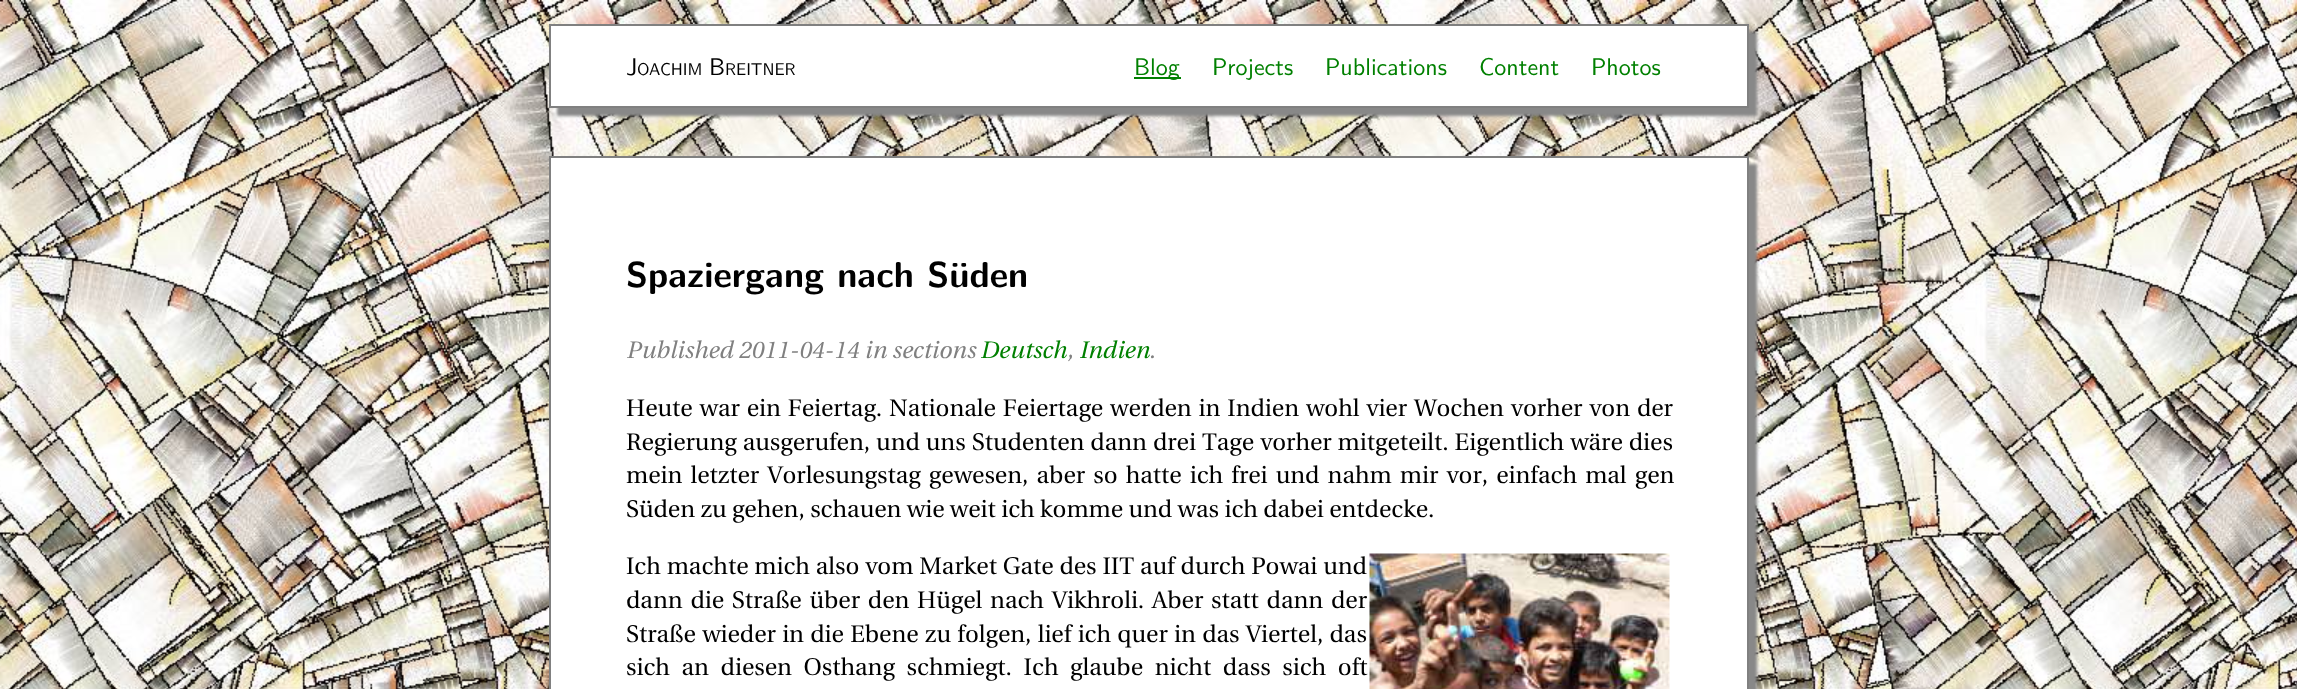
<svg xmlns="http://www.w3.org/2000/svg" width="2297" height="689">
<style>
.a{font:24px Latin Modern Sans;fill:#000}
.b{font:17px Latin Modern Sans;fill:#000}
.c{font:24px Latin Modern Sans;fill:#008000}
.d{font:bold 36px Latin Modern Sans;fill:#000}
.e{font:italic 24px Utopia;fill:#808080}
.f{font:italic 24px Utopia;fill:#008000}
.g{font:24px Utopia;fill:#000}
</style>
<rect width="100%" height="100%" fill="#fff"/>
<image href="1.png" x="0" y="0" width="2297" height="689"/>
<path fill="#888" filter="blur(1.5px)" d="M557 32h1200v84H557z"/>
<path fill="#fff" stroke="#808080" stroke-width="2" d="M550 25h1198v82H550z"/>
<path fill="#008000" d="M1134 77h47v2H1134z"/>
<path fill="#888" filter="blur(1.5px)" d="M557 164h1200v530H557z"/>
<path fill="#fff" stroke="#808080" stroke-width="2" d="M550 157h1198v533H550z"/>
<image href="2.png" x="1369" y="553" width="301" height="136"/>
<text class="a" x="626" y="75">J</text>
<text class="b" x="637" y="75">OACHIM</text>
<text class="a" x="709" y="75">B</text>
<text class="b" x="725" y="75">REITNER</text>
<text class="c" x="1134" y="75">Blog</text>
<text class="c" x="1212" y="75">Projects</text>
<text class="c" x="1325" y="75">Publications</text>
<text class="c" x="1479" y="75">Content</text>
<text class="c" x="1591" y="75">Photos</text>
<text class="d" x="626" y="287">Spaziergang nach Süden</text>
<text class="e" x="626" y="358">Published 2011-04-14 in sections</text>
<text class="f" x="980" y="358">Deutsch</text>
<text class="e" x="1067" y="358">,</text>
<text class="f" x="1079" y="358">Indien</text>
<text class="e" x="1149" y="358">.</text>
<text class="g" x="626" y="416" word-spacing="1.5">Heute war ein Feiertag. Nationale Feiertage werden in Indien wohl vier Wochen vorher von der</text>
<text class="g" x="626" y="450" word-spacing="0.6">Regierung ausgerufen, und uns Studenten dann drei Tage vorher mitgeteilt. Eigentlich wäre dies</text>
<text class="g" x="626" y="483" word-spacing="2.75">mein letzter Vorlesungstag gewesen, aber so hatte ich frei und nahm mir vor, einfach mal gen</text>
<text class="g" x="626" y="517">Süden zu gehen, schauen wie weit ich komme und was ich dabei entdecke.</text>
<text class="g" x="626" y="574" word-spacing="0.5">Ich machte mich also vom Market Gate des IIT auf durch Powai und</text>
<text class="g" x="626" y="608" word-spacing="2.4">dann die Straße über den Hügel nach Vikhroli. Aber statt dann der</text>
<text class="g" x="626" y="642" word-spacing="0.9">Straße wieder in die Ebene zu folgen, lief ich quer in das Viertel, das</text>
<text class="g" x="626" y="675" word-spacing="6.25">sich an diesen Osthang schmiegt. Ich glaube nicht dass sich oft</text>
</svg>
